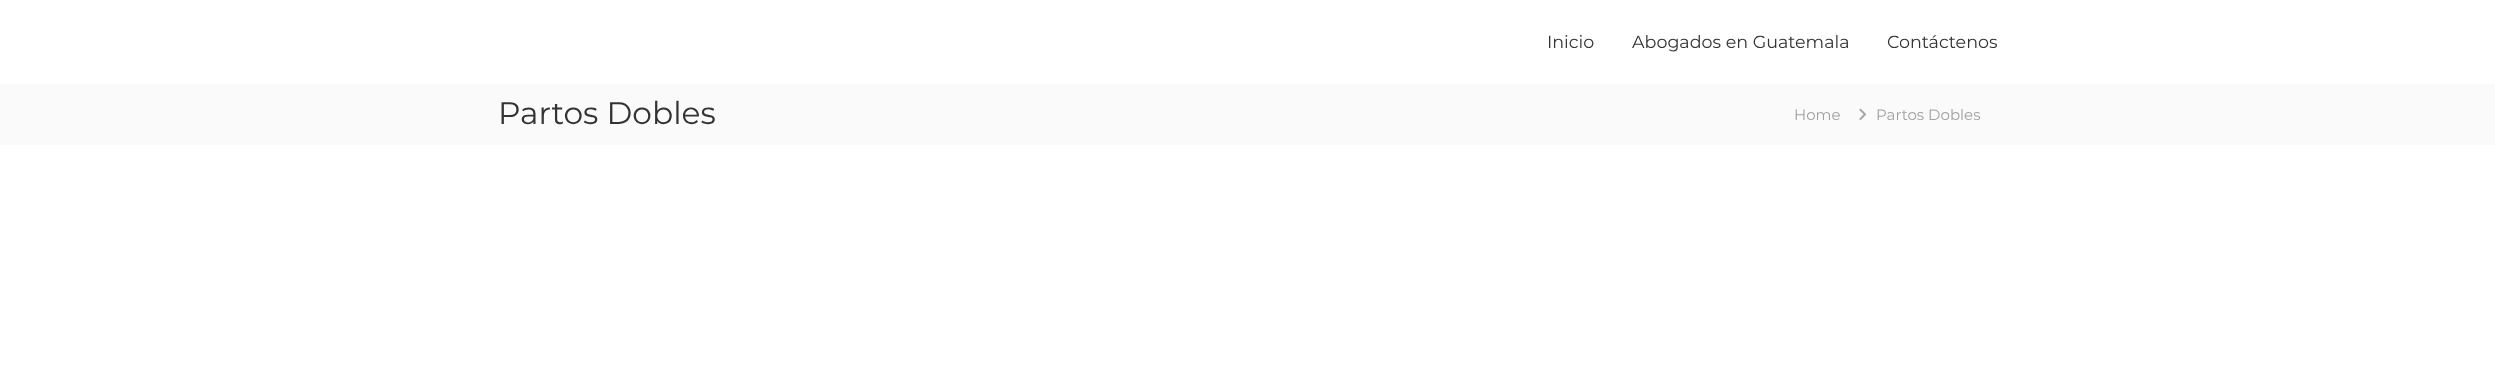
<svg xmlns="http://www.w3.org/2000/svg" width="2495" height="369">
<style>
.a{font:17.5px Montserrat;fill:#333}
.b{font:31.25px Montserrat;fill:#333}
.c{font:15px Montserrat;fill:#a1a1a1}
</style>
<rect width="100%" height="100%" fill="#fff"/>
<path fill="#fafafa" d="M0 84h2495v61H0z"/>
<image href="1.png" x="1859" y="108" width="7" height="12"/>
<text class="a" x="1547" y="48">Inicio</text>
<text class="a" x="1632" y="48">Abogados en Guatemala</text>
<text class="a" x="1887" y="48">Contáctenos</text>
<text class="b" x="498" y="124">Partos Dobles</text>
<text class="c" x="1794" y="120">Home</text>
<text class="c" x="1876" y="120">Partos Dobles</text>
</svg>
